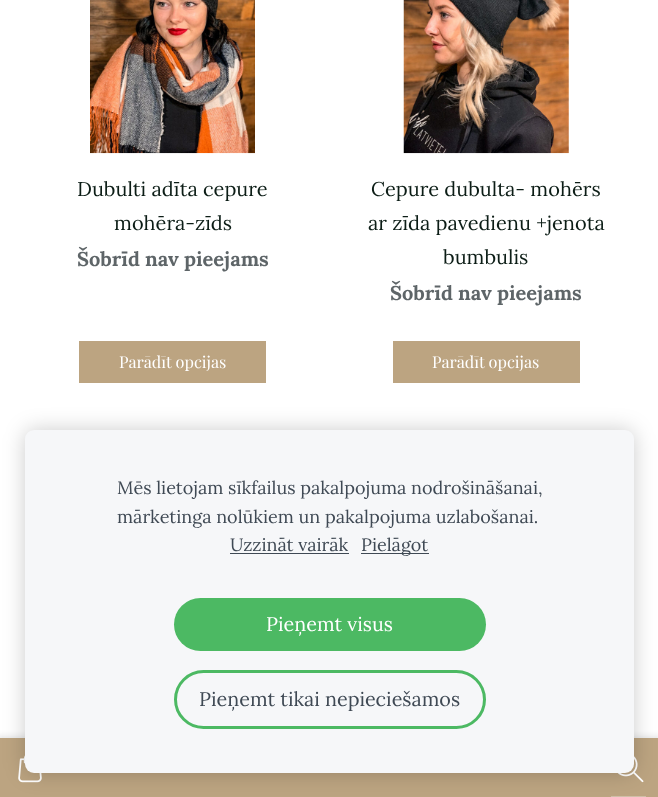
<svg xmlns="http://www.w3.org/2000/svg" width="658" height="797">
<style>
.a{font:20px Lora;fill:#0c1d16}
.b{font:bold 20px Lora;fill:#5e6568}
.c{font:16.25px Playfair Display;fill:#fff}
.d{font:18px Lora;fill:#3f4954}
.e{font:19.75px Lora;fill:#fff}
.f{font:19.75px Lora;fill:#3f4954}
</style>
<rect width="100%" height="100%" fill="#fff"/>
<image href="1.png" x="90" y="0" width="165" height="154"/>
<path fill="#bca481" d="M79 341h187v42H79z"/>
<image href="2.png" x="403" y="0" width="166" height="154"/>
<path fill="#bca481" d="M393 341h187v42H393z"/>
<path fill="#0000001a" filter="blur(3px)" d="M-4 736h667v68H-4z"/>
<path fill="#bca481" d="M0 738h658v59H0z"/>
<image href="3.png" x="18" y="755" width="24" height="28"/>
<image href="4.png" x="617" y="756" width="27" height="27"/>
<path fill="#d0bfa7" d="M611 796h35v1H611z"/>
<rect fill="#00000033" filter="blur(10.5px)" x="25" y="430" width="609" height="343" rx="9"/>
<rect fill="#f6f7f9" x="25" y="430" width="609" height="343" rx="9"/>
<path fill="#3f4954" d="M230 553h119v1H230z"/>
<path fill="#3f4954" d="M361 553h68v1H361z"/>
<rect fill="#4cb963" x="174" y="598" width="312" height="53" rx="26.5"/>
<rect fill="none" stroke="#4cb963" stroke-width="3" x="175.5" y="671.5" width="309" height="56" rx="28"/>
<text class="a" x="77" y="196">Dubulti adīta cepure</text>
<text class="a" x="114" y="230">mohēra-zīds</text>
<text class="b" x="77" y="266">Šobrīd nav pieejams</text>
<text class="c" x="119" y="368">Parādīt opcijas</text>
<text class="a" x="371" y="196">Cepure dubulta- mohērs</text>
<text class="a" x="368" y="230">ar zīda pavedienu +jenota</text>
<text class="a" x="443" y="264">bumbulis</text>
<text class="b" x="390" y="300">Šobrīd nav pieejams</text>
<text class="c" x="432" y="368">Parādīt opcijas</text>
<text class="d" x="117" y="494">Mēs lietojam sīkfailus pakalpojuma nodrošināšanai,</text>
<text class="d" x="117" y="523">mārketinga nolūkiem un pakalpojuma uzlabošanai.</text>
<text class="d" x="230" y="551">Uzzināt vairāk</text>
<text class="d" x="361" y="551">Pielāgot</text>
<text class="e" x="266" y="631">Pieņemt visus</text>
<text class="f" x="199" y="706">Pieņemt tikai nepieciešamos</text>
</svg>
